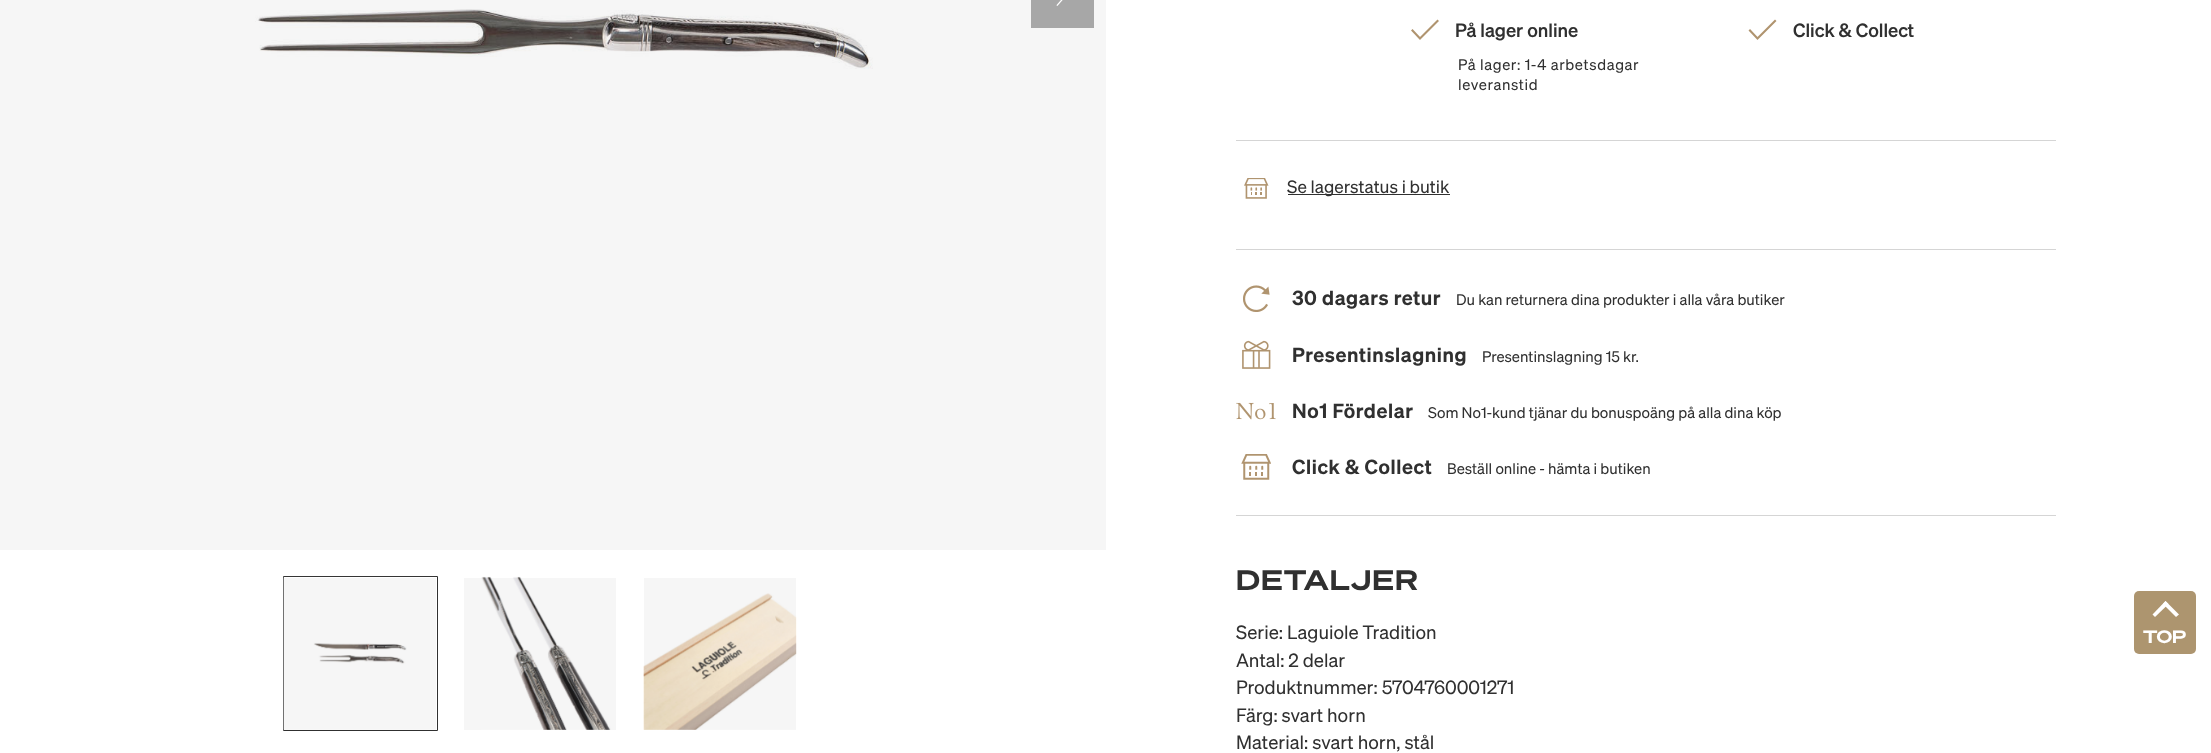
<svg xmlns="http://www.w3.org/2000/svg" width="2211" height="753">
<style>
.a{font:500 18.75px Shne;fill:#303030}
.b{font:15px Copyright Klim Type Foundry;letter-spacing:0.6px;fill:#303030}
.c{font:17.5px Copyright Klim Type Foundry;fill:#303030}
.d{font:600 20px Shne;letter-spacing:0.6px;fill:#303030}
.e{font:15px Copyright Klim Type Foundry;fill:#303030}
.f{font:bold 27.5px Copyright Klim Type Foundry;letter-spacing:1.25px;fill:#303030}
.g{font:18.75px Copyright Klim Type Foundry;fill:#303030}
.h{font:bold 17.5px Copyright Klim Type Foundry;fill:#fff}
</style>
<rect width="100%" height="100%" fill="#fff"/>
<path fill="#f6f6f6" d="M644 578h152v152H644z"/>
<path fill="#f6f6f6" d="M464 578h152v152H464z"/>
<path fill="#f6f6f6" d="M0 0h1106v550H0z"/>
<image href="1.png" x="255" y="9" width="618" height="60"/>
<path fill="#a7a7a7" d="M1031 0h63v28H1031z"/>
<image href="2.png" x="1056" y="0" width="7" height="6"/>
<path fill="none" stroke="#303030" d="M283.5 576.5h154v154H283.5z"/>
<image href="3.png" x="283" y="576" width="153" height="154"/>
<image href="4.png" x="481" y="576" width="130" height="154"/>
<image href="5.png" x="643" y="593" width="154" height="137"/>
<path fill="none" stroke="#b0946f" stroke-width="2.1" stroke-linecap="square" d="M1437.5 21l-17.5 17.5l-7.5-8"/>
<path fill="none" stroke="#b0946f" stroke-width="2.1" stroke-linecap="square" d="M1775 21l-17.5 17.5l-7.5-8"/>
<path fill="#d5d5d5" d="M1236 140h820v1H1236z"/>
<image href="6.png" x="1244" y="178" width="25" height="21"/>
<path fill="#303030" d="M1288 194h162v1H1288z"/>
<path fill="#d5d5d5" d="M1236 249h820v1H1236z"/>
<image href="7.png" x="1243" y="285" width="27" height="27"/>
<image href="8.png" x="1242" y="340" width="29" height="29"/>
<image href="9.png" x="1236" y="402" width="40" height="18"/>
<image href="10.png" x="1241" y="454" width="30" height="26"/>
<path fill="#d5d5d5" d="M1236 515h820v1H1236z"/>
<rect fill="#ad956f" x="2134" y="591" width="62" height="63" rx="5"/>
<path fill="#fff" d="M2155 617l-2.5-2.5l13-13.5l3 3z"/>
<path fill="#fff" d="M2176 617l-13-13l2.5-3l13.5 13.5z"/>
<text class="a" x="1455" y="37">På lager online</text>
<text class="b" x="1458" y="70">På lager: 1-4 arbetsdagar</text>
<text class="b" x="1458" y="90">leveranstid</text>
<text class="a" x="1793" y="37">Click &amp; Collect</text>
<text class="c" x="1287" y="193">Se lagerstatus i butik</text>
<text class="d" x="1292" y="305">30 dagars retur</text>
<text class="e" x="1456" y="305">Du kan returnera dina produkter i alla våra butiker</text>
<text class="d" x="1292" y="362">Presentinslagning</text>
<text class="e" x="1482" y="362">Presentinslagning 15 kr.</text>
<text class="d" x="1292" y="418">No1 Fördelar</text>
<text class="e" x="1428" y="418">Som No1-kund tjänar du bonuspoäng på alla dina köp</text>
<text class="d" x="1292" y="474">Click &amp; Collect</text>
<text class="e" x="1447" y="474">Beställ online - hämta i butiken</text>
<text class="f" x="1236" y="590">DETALJER</text>
<text class="g" x="1236" y="639">Serie: Laguiole Tradition</text>
<text class="g" x="1236" y="667">Antal: 2 delar</text>
<text class="g" x="1236" y="694">Produktnummer: 5704760001271</text>
<text class="g" x="1236" y="722">Färg: svart horn</text>
<text class="g" x="1236" y="749">Material: svart horn, stål</text>
<text class="h" x="2143" y="643">TOP</text>
</svg>
